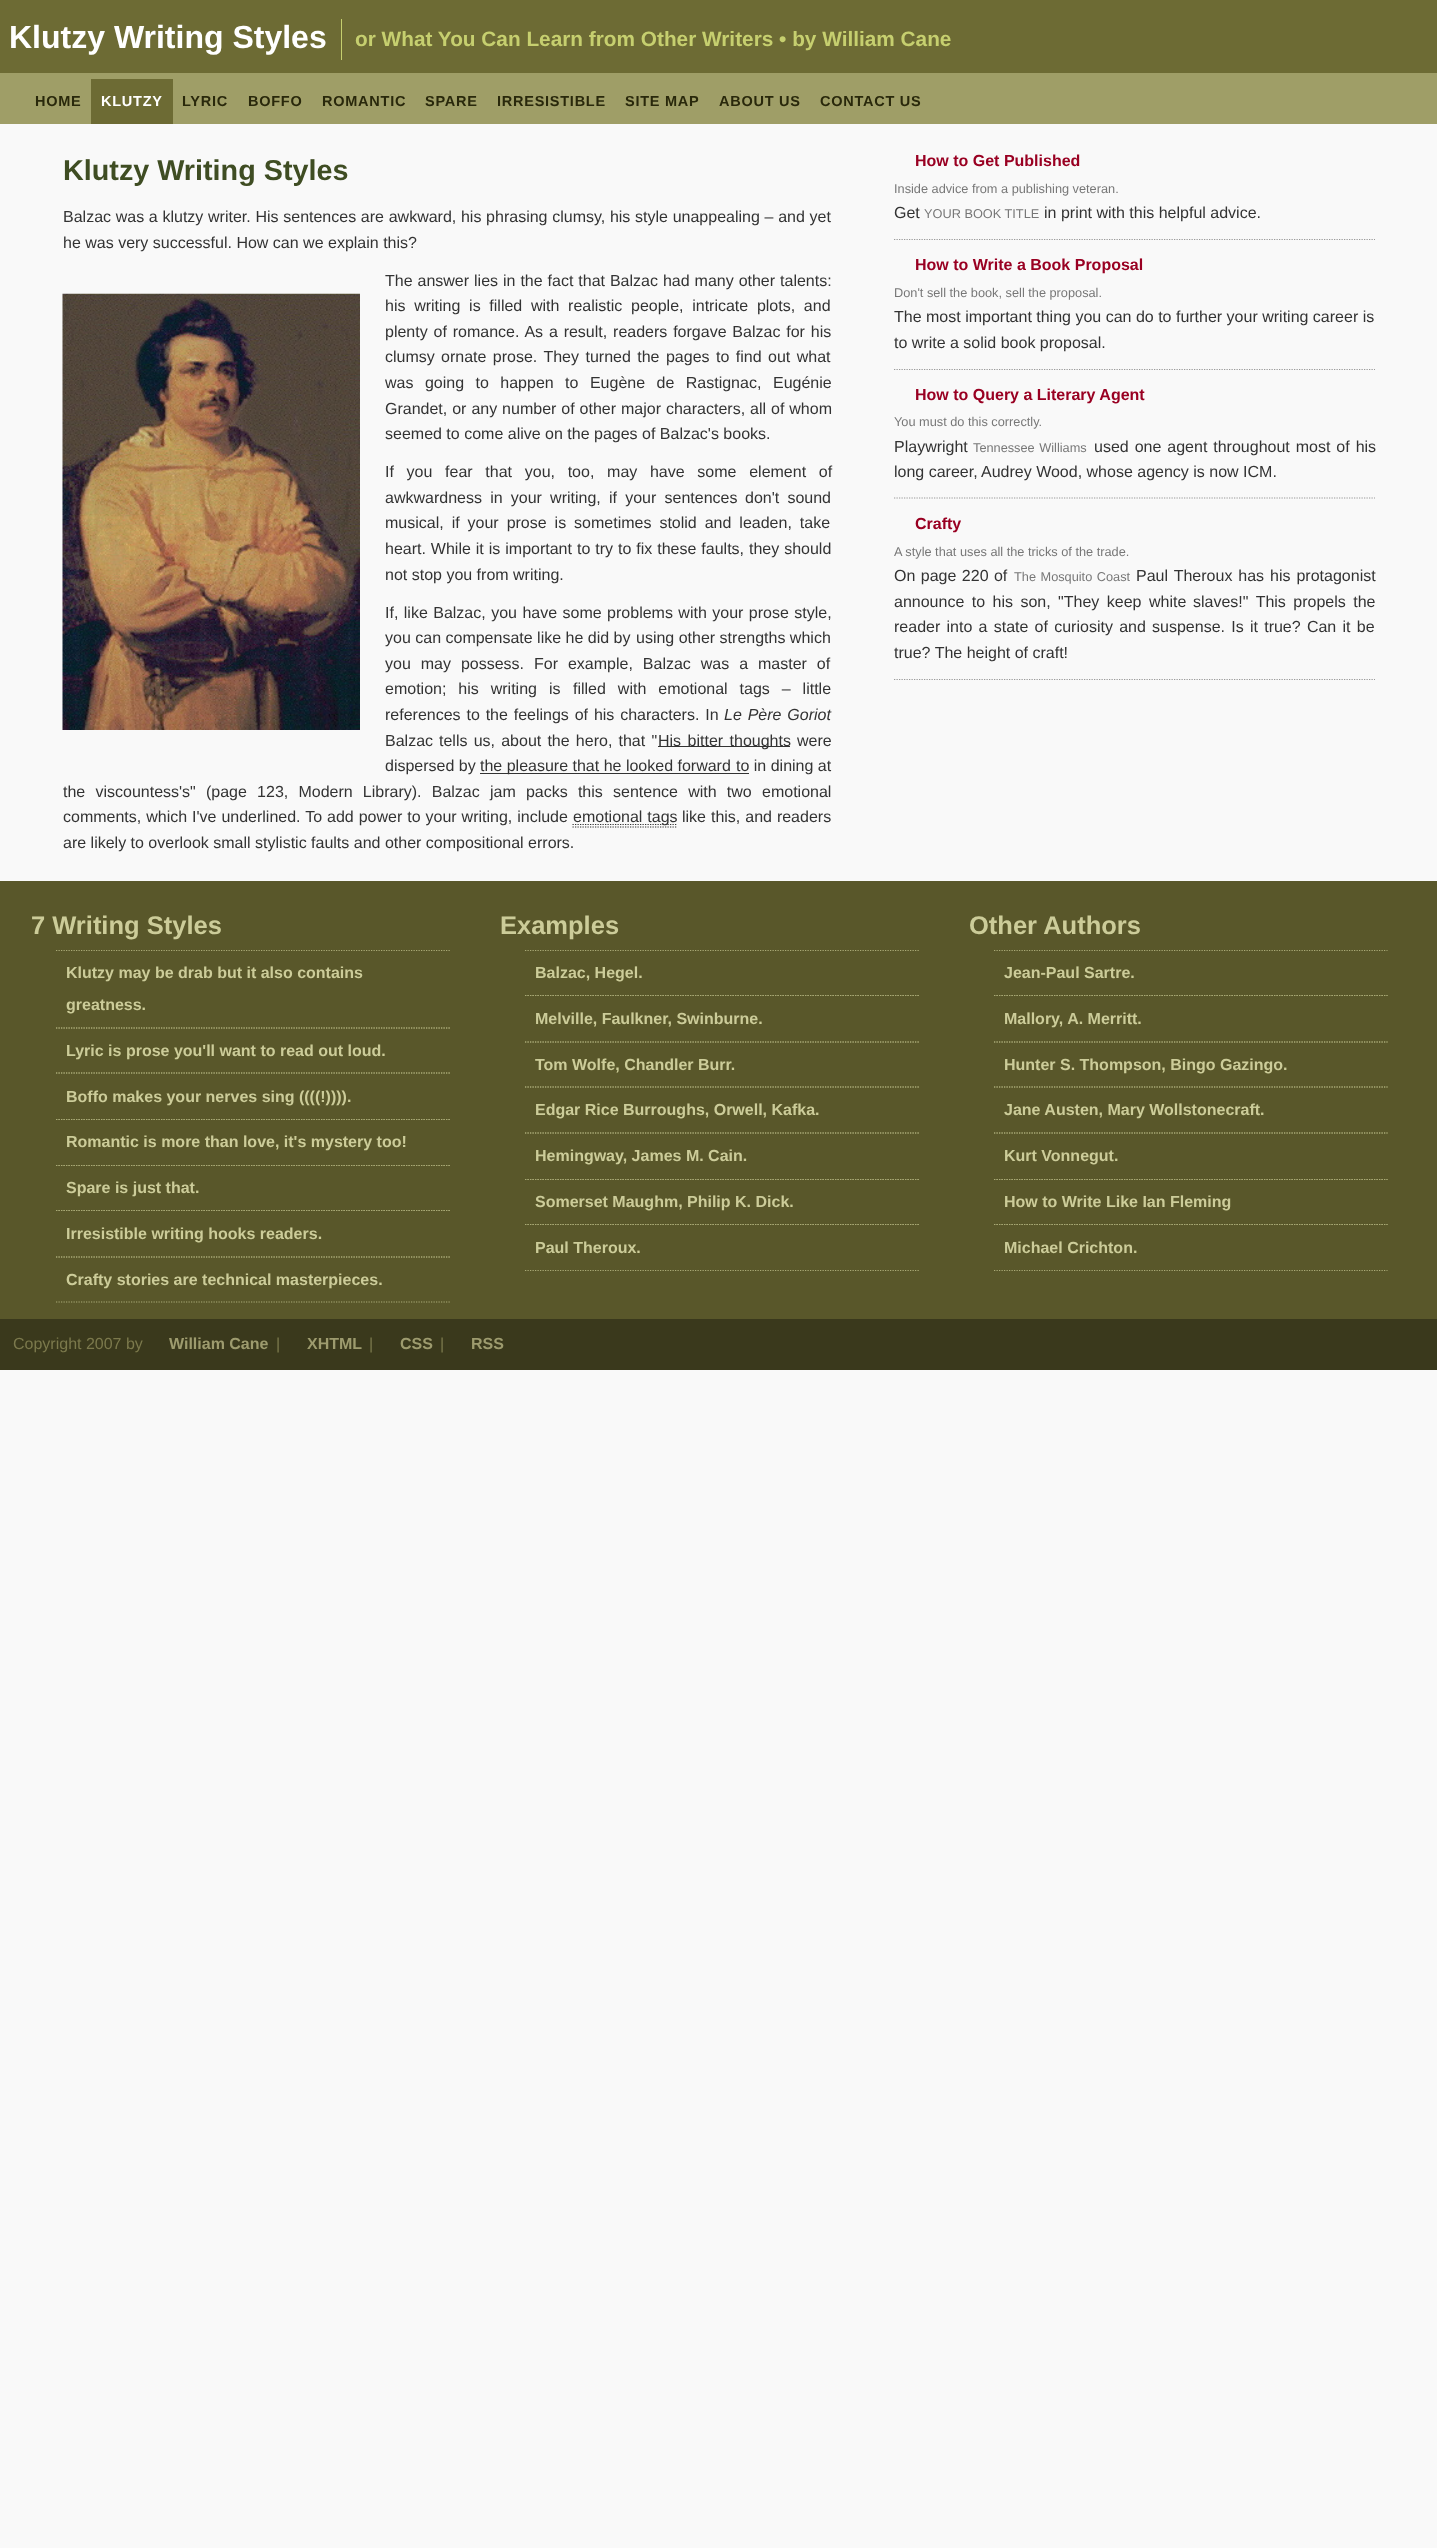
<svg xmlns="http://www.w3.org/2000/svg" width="1437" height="2548">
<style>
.a{font:bold 32px Liberation Sans;fill:#fff}
.b{font:bold 20.8px Liberation Sans;fill:#c6cf6f}
.c{font:bold 14.5px Liberation Sans;letter-spacing:0.75px;fill:#29280b}
.d{font:bold 14.5px Liberation Sans;letter-spacing:0.75px;fill:#fff}
.e{font:bold 28.75px Liberation Sans;fill:#3f4d23}
.f{font:16px Liberation Sans;fill:#333}
.g{font:italic 16px Liberation Sans;fill:#333}
.h{font:bold 16px Liberation Sans;fill:#902}
.i{font:12.75px Liberation Sans;fill:#777}
.j{font:bold 25.5px Liberation Sans;fill:#cc9}
.k{font:bold 16px Liberation Sans;fill:#cc9}
.l{font:16px Liberation Sans;fill:#7b794c}
.m{font:bold 16px Liberation Sans;fill:#9d9b6e}
</style>
<defs>
<clipPath id="clip1"><path d="M500 945h431v326H500z"/></clipPath>
<clipPath id="clip2"><path d="M969 945h431v326H969z"/></clipPath>
</defs>
<rect width="100%" height="100%" fill="#f9f9f9"/>
<path fill="#6d6b34" d="M0 0h1437v73H0z"/>
<path fill="#c6cf6f" d="M341 19h1v41H341z"/>
<path fill="#9f9e67" d="M0 73h1437v51H0z"/>
<path fill="#6d6b34" d="M91 79h82v45H91z"/>
<image href="1.png" x="62" y="293" width="298" height="437"/>
<path fill="#333" d="M658 746h132v1H658z"/>
<path fill="#333" d="M480 773h269v1H480z"/>
<path fill="none" stroke="#333" stroke-width="1.2" stroke-dasharray="1.25 1.25" d="M572.5 827h105"/>
<path fill="none" stroke="#333" stroke-width="1.2" stroke-dasharray="1.25 1.25" d="M572.5 824.5h104.5"/>
<path fill="none" stroke="#999" stroke-width="1.2" stroke-dasharray="1.25 1.25" d="M894 239.5h481"/>
<path fill="none" stroke="#999" stroke-width="1.2" stroke-dasharray="1.25 1.25" d="M894 369.5h481"/>
<path fill="none" stroke="#999" stroke-width="1.2" stroke-dasharray="1.25 1.25" d="M894 498h481"/>
<path fill="none" stroke="#999" stroke-width="1.2" stroke-dasharray="1.25 1.25" d="M894 679.5h481"/>
<path fill="#59572a" d="M0 881h1437v438H0z"/>
<path fill="none" stroke="#aa7" stroke-width="1.2" stroke-dasharray="1.25 1.25" d="M56 950.5h394"/>
<path fill="none" stroke="#aa7" stroke-width="1.2" stroke-dasharray="1.25 1.25" d="M56 1028h394"/>
<path fill="none" stroke="#aa7" stroke-width="1.2" stroke-dasharray="1.25 1.25" d="M56 1028h394"/>
<path fill="none" stroke="#aa7" stroke-width="1.2" stroke-dasharray="1.25 1.25" d="M56 1073h394"/>
<path fill="none" stroke="#aa7" stroke-width="1.2" stroke-dasharray="1.25 1.25" d="M56 1073h394"/>
<path fill="none" stroke="#aa7" stroke-width="1.2" stroke-dasharray="1.25 1.25" d="M56 1119.5h394"/>
<path fill="none" stroke="#aa7" stroke-width="1.2" stroke-dasharray="1.25 1.25" d="M56 1119.5h394"/>
<path fill="none" stroke="#aa7" stroke-width="1.2" stroke-dasharray="1.25 1.25" d="M56 1165.5h394"/>
<path fill="none" stroke="#aa7" stroke-width="1.2" stroke-dasharray="1.25 1.25" d="M56 1165.5h394"/>
<path fill="none" stroke="#aa7" stroke-width="1.2" stroke-dasharray="1.25 1.25" d="M56 1210.5h394"/>
<path fill="none" stroke="#aa7" stroke-width="1.2" stroke-dasharray="1.25 1.25" d="M56 1210.5h394"/>
<path fill="none" stroke="#aa7" stroke-width="1.2" stroke-dasharray="1.25 1.25" d="M56 1257h394"/>
<path fill="none" stroke="#aa7" stroke-width="1.2" stroke-dasharray="1.25 1.25" d="M56 1257h394"/>
<path fill="none" stroke="#aa7" stroke-width="1.2" stroke-dasharray="1.25 1.25" d="M56 1302h394"/>
<path fill="none" stroke="#aa7" stroke-width="1.2" stroke-dasharray="1.25 1.25" d="M525 950.5h394"/>
<path fill="none" stroke="#aa7" stroke-width="1.2" stroke-dasharray="1.25 1.25" d="M525 995.5h394"/>
<path fill="none" stroke="#aa7" stroke-width="1.2" stroke-dasharray="1.25 1.25" d="M525 995.5h394"/>
<path fill="none" stroke="#aa7" stroke-width="1.2" stroke-dasharray="1.25 1.25" d="M525 1042h394"/>
<path fill="none" stroke="#aa7" stroke-width="1.2" stroke-dasharray="1.25 1.25" d="M525 1042h394"/>
<path fill="none" stroke="#aa7" stroke-width="1.2" stroke-dasharray="1.25 1.25" d="M525 1087h394"/>
<path fill="none" stroke="#aa7" stroke-width="1.2" stroke-dasharray="1.25 1.25" d="M525 1087h394"/>
<path fill="none" stroke="#aa7" stroke-width="1.2" stroke-dasharray="1.25 1.25" d="M525 1133h394"/>
<path fill="none" stroke="#aa7" stroke-width="1.2" stroke-dasharray="1.25 1.25" d="M525 1133h394"/>
<path fill="none" stroke="#aa7" stroke-width="1.2" stroke-dasharray="1.25 1.25" d="M525 1179.5h394"/>
<path fill="none" stroke="#aa7" stroke-width="1.2" stroke-dasharray="1.25 1.25" d="M525 1179.5h394"/>
<path fill="none" stroke="#aa7" stroke-width="1.2" stroke-dasharray="1.25 1.25" d="M525 1224.5h394"/>
<path fill="none" stroke="#aa7" stroke-width="1.2" stroke-dasharray="1.25 1.25" d="M525 1224.5h394"/>
<g clip-path="url(#clip1)">
<path fill="none" stroke="#aa7" stroke-width="1.2" stroke-dasharray="1.25 1.25" d="M525 1270.5h394"/>
</g>
<path fill="none" stroke="#aa7" stroke-width="1.2" stroke-dasharray="1.25 1.25" d="M994 950.5h393.5"/>
<path fill="none" stroke="#aa7" stroke-width="1.2" stroke-dasharray="1.25 1.25" d="M994 995.5h393.5"/>
<path fill="none" stroke="#aa7" stroke-width="1.2" stroke-dasharray="1.25 1.25" d="M994 995.5h393.5"/>
<path fill="none" stroke="#aa7" stroke-width="1.2" stroke-dasharray="1.25 1.25" d="M994 1042h393.5"/>
<path fill="none" stroke="#aa7" stroke-width="1.2" stroke-dasharray="1.25 1.25" d="M994 1042h393.5"/>
<path fill="none" stroke="#aa7" stroke-width="1.2" stroke-dasharray="1.25 1.25" d="M994 1087h393.5"/>
<path fill="none" stroke="#aa7" stroke-width="1.2" stroke-dasharray="1.25 1.25" d="M994 1087h393.5"/>
<path fill="none" stroke="#aa7" stroke-width="1.2" stroke-dasharray="1.25 1.25" d="M994 1133h393.5"/>
<path fill="none" stroke="#aa7" stroke-width="1.2" stroke-dasharray="1.25 1.25" d="M994 1133h393.5"/>
<path fill="none" stroke="#aa7" stroke-width="1.2" stroke-dasharray="1.25 1.25" d="M994 1179.5h393.5"/>
<path fill="none" stroke="#aa7" stroke-width="1.2" stroke-dasharray="1.25 1.25" d="M994 1179.5h393.5"/>
<path fill="none" stroke="#aa7" stroke-width="1.2" stroke-dasharray="1.25 1.25" d="M994 1224.5h393.5"/>
<path fill="none" stroke="#aa7" stroke-width="1.2" stroke-dasharray="1.25 1.25" d="M994 1224.5h393.5"/>
<g clip-path="url(#clip2)">
<path fill="none" stroke="#aa7" stroke-width="1.2" stroke-dasharray="1.25 1.25" d="M994 1270.5h393.5"/>
</g>
<path fill="#3a391c" d="M0 1319h1437v51H0z"/>
<text class="a" x="9" y="48">Klutzy Writing Styles</text>
<text class="b" x="355" y="46">or What You Can Learn from Other Writers • by William Cane</text>
<text class="c" x="35" y="106">HOME</text>
<text class="d" x="101" y="106">KLUTZY</text>
<text class="c" x="182" y="106">LYRIC</text>
<text class="c" x="248" y="106">BOFFO</text>
<text class="c" x="322" y="106">ROMANTIC</text>
<text class="c" x="425" y="106">SPARE</text>
<text class="c" x="497" y="106">IRRESISTIBLE</text>
<text class="c" x="625" y="106">SITE MAP</text>
<text class="c" x="719" y="106">ABOUT US</text>
<text class="c" x="820" y="106">CONTACT US</text>
<text class="e" x="63" y="180">Klutzy Writing Styles</text>
<text class="f" x="63" y="222" word-spacing="0.25">Balzac was a klutzy writer. His sentences are awkward, his phrasing clumsy, his style unappealing – and yet</text>
<text class="f" x="63" y="248">he was very successful. How can we explain this?</text>
<text class="f" x="385" y="286" word-spacing="0.5">The answer lies in the fact that Balzac had many other talents:</text>
<text class="f" x="385" y="311" word-spacing="4.25">his writing is filled with realistic</text>
<text class="f" x="631" y="311" word-spacing="4.25">people, intricate plots, and</text>
<text class="f" x="385" y="337" word-spacing="1.4">plenty of romance. As a result, readers forgave Balzac for his</text>
<text class="f" x="385" y="362">clumsy</text>
<text class="f" x="441" y="362" word-spacing="2">ornate prose. They turned the pages to find out what</text>
<text class="f" x="385" y="388" word-spacing="7">was going to happen to Eugène de Rastignac,</text>
<text class="f" x="773" y="388">Eugénie</text>
<text class="f" x="385" y="414" word-spacing="0.5">Grandet, or any number of other major characters, all of whom</text>
<text class="f" x="385" y="439">seemed to come alive on the pages of Balzac's books.</text>
<text class="f" x="385" y="477" word-spacing="8.25">If you fear that you, too, may have some element of</text>
<text class="f" x="385" y="503" word-spacing="3.75">awkwardness in your writing, if your sentences</text>
<text class="f" x="745" y="503" word-spacing="3.75">don't sound</text>
<text class="f" x="385" y="528" word-spacing="3.5">musical, if your prose is sometimes stolid and leaden, take</text>
<text class="f" x="385" y="554" word-spacing="0.5">heart. While it is important</text>
<text class="f" x="577" y="554" word-spacing="0.5">to try to fix these faults, they should</text>
<text class="f" x="385" y="580">not stop you from writing.</text>
<text class="f" x="385" y="618" word-spacing="1">If, like Balzac, you have some problems with your prose style,</text>
<text class="f" x="385" y="643">you can compensate like he did by</text>
<text class="f" x="636" y="643">using other strengths which</text>
<text class="f" x="385" y="669" word-spacing="5.5">you may possess. For example, Balzac was a master of</text>
<text class="f" x="385" y="694" word-spacing="7.5">emotion; his writing is</text>
<text class="f" x="573" y="694" word-spacing="7.5">filled with emotional tags – little</text>
<text class="f" x="385" y="720" word-spacing="1.4">references to the feelings of his characters. In</text>
<text class="g" x="724" y="720" word-spacing="1.4">Le Père Goriot</text>
<text class="f" x="385" y="746">Balzac</text>
<text class="f" x="439" y="746" word-spacing="1.75">tells us, about the hero, that "</text>
<text class="f" x="658" y="746" word-spacing="2">His bitter thoughts</text>
<text class="f" x="797" y="746">were</text>
<text class="f" x="385" y="771">dispersed by</text>
<text class="f" x="480" y="771">the pleasure that he looked forward</text>
<text class="f" x="736" y="771">to in dining at</text>
<text class="f" x="63" y="797" word-spacing="5.75">the viscountess's" (page 123, Modern Library). Balzac jam packs this sentence with two</text>
<text class="f" x="762" y="797">emotional</text>
<text class="f" x="63" y="822" word-spacing="0.5">comments, which I've underlined. To add power to your writing, include</text>
<text class="f" x="573" y="822" word-spacing="0.5">emotional tags</text>
<text class="f" x="682" y="822" word-spacing="0.5">like this, and readers</text>
<text class="f" x="63" y="848">are likely to overlook small stylistic faults and other compositional errors.</text>
<text class="h" x="915" y="166">How to Get Published</text>
<text class="i" x="894" y="193">Inside advice from a publishing veteran.</text>
<text class="f" x="894" y="218">Get</text>
<text class="i" x="924" y="218">YOUR BOOK TITLE</text>
<text class="f" x="1044" y="218">in print with this helpful advice.</text>
<text class="h" x="915" y="270">How to Write a Book Proposal</text>
<text class="i" x="894" y="297">Don't sell the book, sell the proposal.</text>
<text class="f" x="894" y="322">The most important thing you can do to further your writing career is</text>
<text class="f" x="894" y="348">to write a solid book proposal.</text>
<text class="h" x="915" y="400">How to Query a Literary Agent</text>
<text class="i" x="894" y="426">You must do this correctly.</text>
<text class="f" x="894" y="452">Playwright</text>
<text class="i" x="973" y="452" word-spacing="1">Tennessee Williams</text>
<text class="f" x="1094" y="452" word-spacing="1.5">used one agent throughout most of his</text>
<text class="f" x="894" y="477">long career,</text>
<text class="f" x="981" y="477">Audrey Wood, whose agency is now ICM.</text>
<text class="h" x="915" y="529">Crafty</text>
<text class="i" x="894" y="556">A style that uses all the tricks of the trade.</text>
<text class="f" x="894" y="581" word-spacing="1">On page 220 of</text>
<text class="i" x="1014" y="581" word-spacing="1">The Mosquito Coast</text>
<text class="f" x="1136" y="581" word-spacing="1.5">Paul Theroux has his protagonist</text>
<text class="f" x="894" y="607" word-spacing="3">announce to his son, "They keep white</text>
<text class="f" x="1193" y="607" word-spacing="3">slaves!" This propels the</text>
<text class="f" x="894" y="632" word-spacing="1.8">reader into a state of curiosity and suspense. Is it true? Can it be</text>
<text class="f" x="894" y="658">true? The height of craft!</text>
<text class="j" x="31" y="934">7 Writing Styles</text>
<text class="k" x="66" y="978">Klutzy may be drab but it also contains</text>
<text class="k" x="66" y="1010">greatness.</text>
<text class="k" x="66" y="1056">Lyric is prose you'll want to read out loud.</text>
<text class="k" x="66" y="1102">Boffo makes your nerves sing ((((!)))).</text>
<text class="k" x="66" y="1147">Romantic is more than love, it's mystery too!</text>
<text class="k" x="66" y="1193">Spare is just that.</text>
<text class="k" x="66" y="1239">Irresistible writing hooks readers.</text>
<text class="k" x="66" y="1285">Crafty stories are technical masterpieces.</text>
<text class="j" x="500" y="934">Examples</text>
<text class="k" x="535" y="978">Balzac, Hegel.</text>
<text class="k" x="535" y="1024">Melville, Faulkner, Swinburne.</text>
<text class="k" x="535" y="1070">Tom Wolfe, Chandler Burr.</text>
<text class="k" x="535" y="1115">Edgar Rice Burroughs, Orwell, Kafka.</text>
<text class="k" x="535" y="1161">Hemingway, James M. Cain.</text>
<text class="k" x="535" y="1207">Somerset Maughm, Philip K. Dick.</text>
<text class="k" x="535" y="1253">Paul Theroux.</text>
<text class="j" x="969" y="934">Other Authors</text>
<text class="k" x="1004" y="978">Jean-Paul Sartre.</text>
<text class="k" x="1004" y="1024">Mallory, A. Merritt.</text>
<text class="k" x="1004" y="1070">Hunter S. Thompson, Bingo Gazingo.</text>
<text class="k" x="1004" y="1115">Jane Austen, Mary Wollstonecraft.</text>
<text class="k" x="1004" y="1161">Kurt Vonnegut.</text>
<text class="k" x="1004" y="1207">How to Write Like Ian Fleming</text>
<text class="k" x="1004" y="1253">Michael Crichton.</text>
<text class="l" x="13" y="1349">Copyright 2007 by</text>
<text class="m" x="169" y="1349">William Cane</text>
<text class="l" x="276" y="1349">|</text>
<text class="m" x="307" y="1349">XHTML</text>
<text class="l" x="369" y="1349">|</text>
<text class="m" x="400" y="1349">CSS</text>
<text class="l" x="440" y="1349">|</text>
<text class="m" x="471" y="1349">RSS</text>
</svg>
